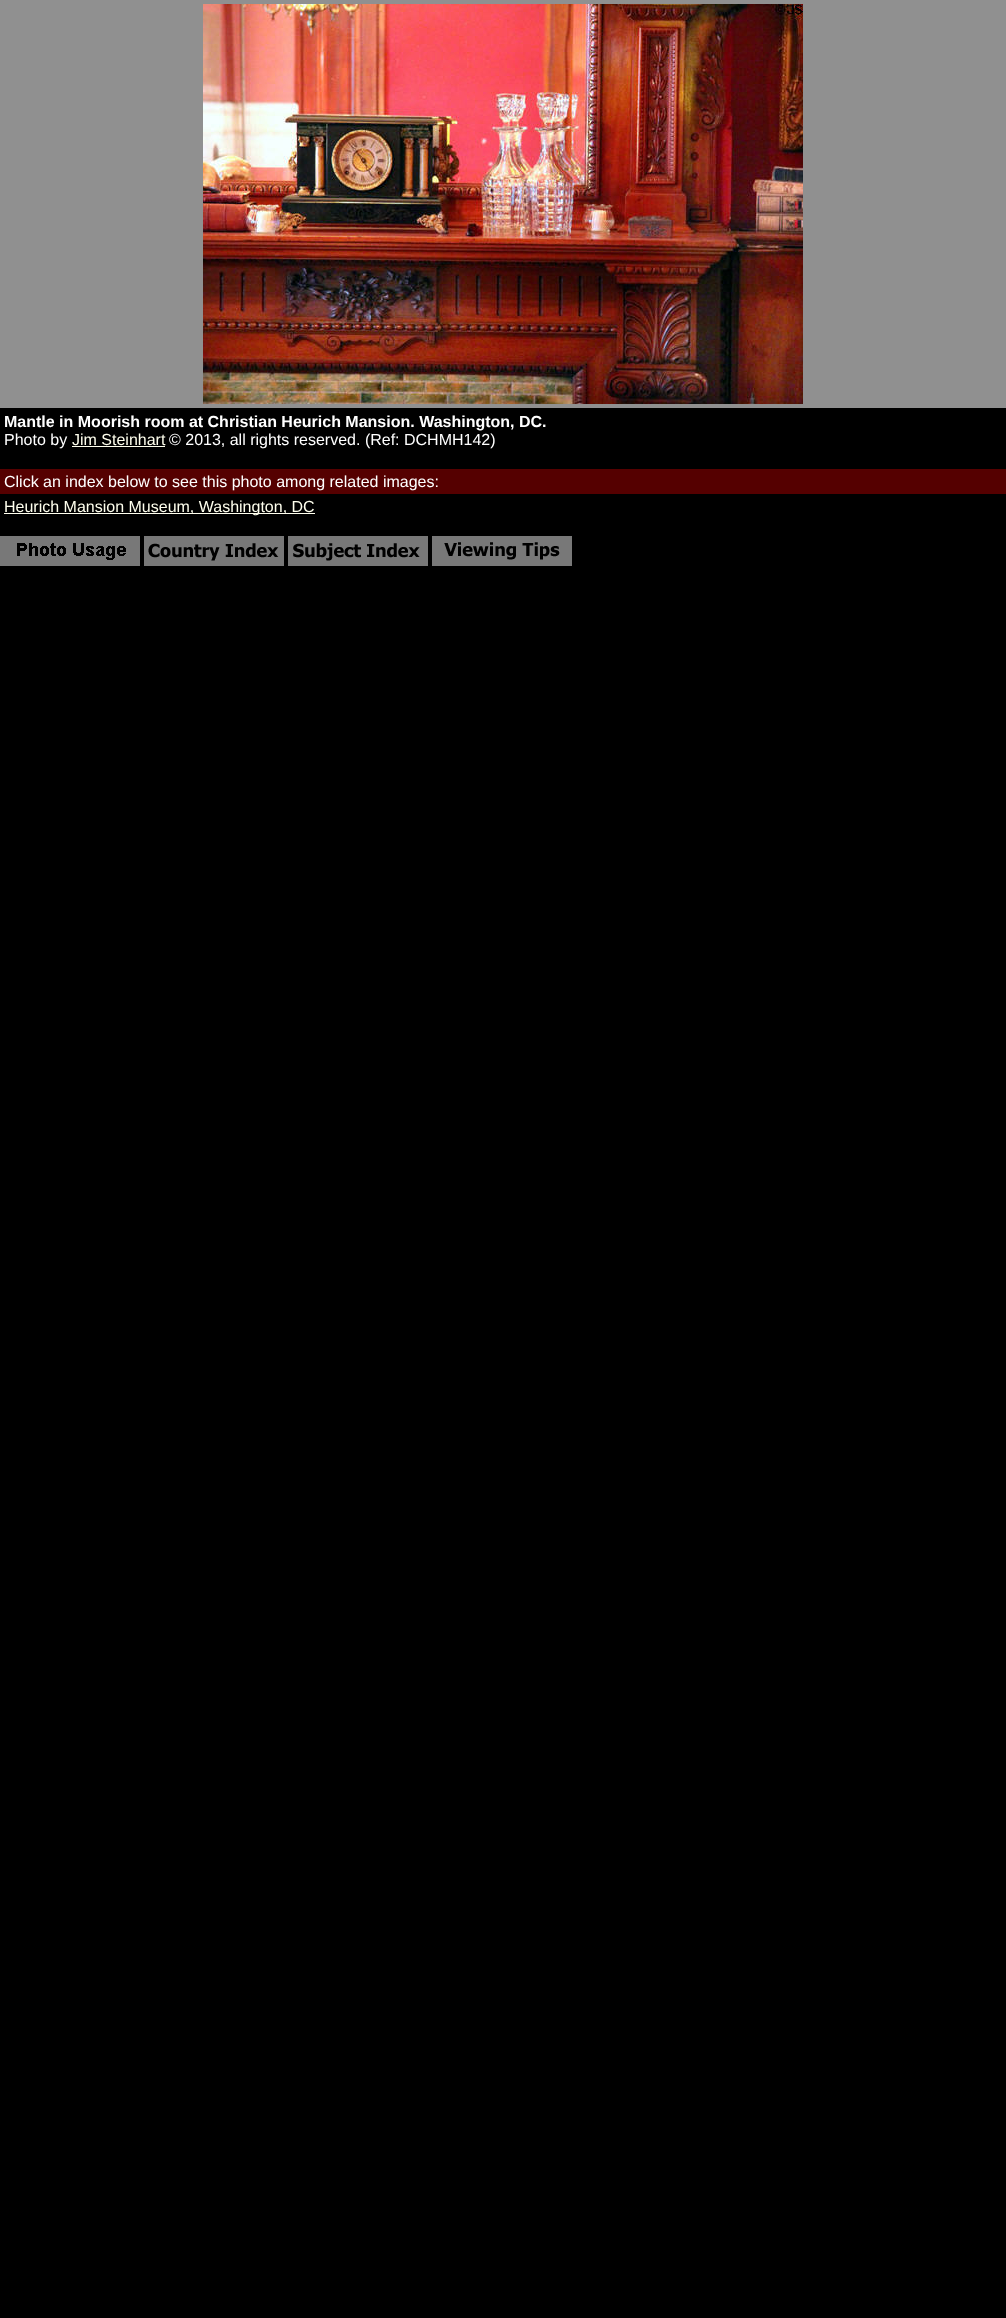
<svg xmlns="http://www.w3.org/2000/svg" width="1006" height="2318">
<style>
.a{font:bold 16px Liberation Sans;fill:#fff}
.b{font:16px Liberation Sans;fill:#fff}
.c{font:16px Liberation Sans;fill:#ffe}
</style>
<rect width="100%" height="100%" fill="#000"/>
<path fill="#909090" d="M0 0h1006v408H0z"/>
<image href="1.png" x="203" y="4" width="600" height="400"/>
<path fill="#ffe" d="M72 446h93v1H72z"/>
<path fill="#500" d="M0 469h1006v25H0z"/>
<path fill="#ffe" d="M4 513h311v1H4z"/>
<image href="2.png" x="0" y="536" width="140" height="30"/>
<image href="3.png" x="144" y="536" width="140" height="30"/>
<image href="4.png" x="288" y="536" width="140" height="30"/>
<image href="5.png" x="432" y="536" width="140" height="30"/>
<text class="a" x="4" y="427">Mantle in Moorish room at Christian Heurich Mansion. Washington, DC.</text>
<text class="b" x="4" y="445">Photo by</text>
<text class="c" x="72" y="445">Jim Steinhart</text>
<text class="b" x="169" y="445">© 2013, all rights reserved. (Ref: DCHMH142)</text>
<text class="b" x="4" y="487">Click an index below to see this photo among related images:</text>
<text class="c" x="4" y="512">Heurich Mansion Museum, Washington, DC</text>
</svg>
